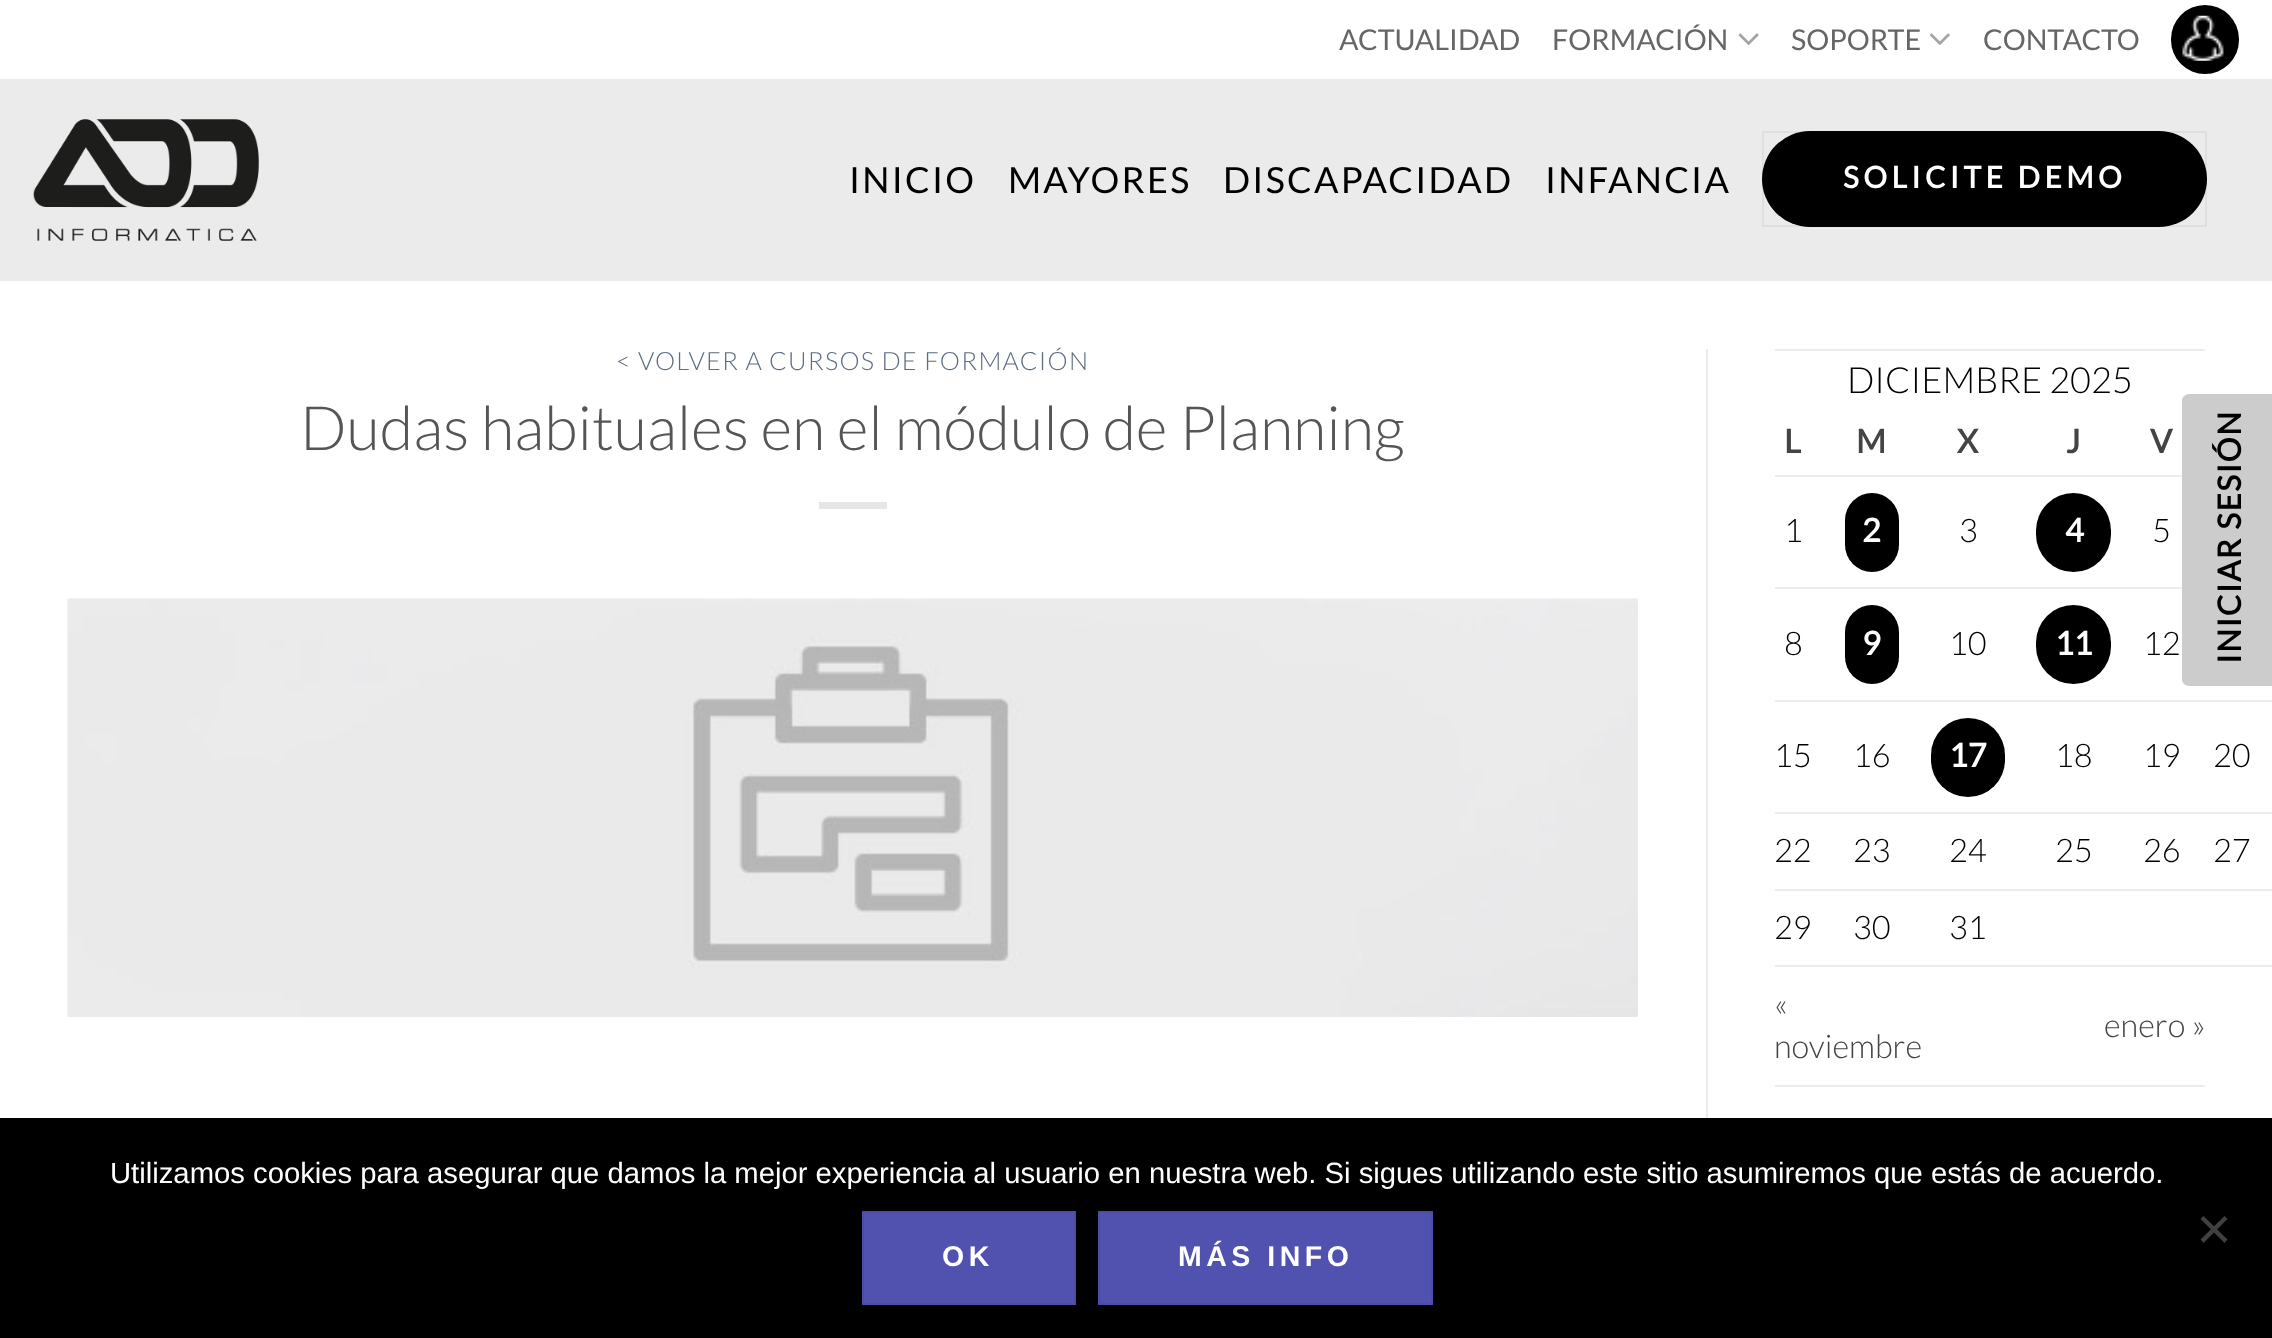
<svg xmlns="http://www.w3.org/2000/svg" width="2272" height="1338">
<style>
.a{font:28.75px Lato;fill:#666}
.b{font:36px Lato;letter-spacing:2.25px;fill:#000}
.c{font:bold 29.75px Lato;letter-spacing:4.5px;fill:#fff}
.d{font:300 25.25px Lato;letter-spacing:1.25px;fill:#5c6d81}
.e{font:300 61.25px Lato;fill:#555}
.f{font:300 36px Lato;fill:#000}
.g{font:bold 32.5px Lato;letter-spacing:2px;fill:#444}
.h{font:300 32.5px Lato;fill:#000}
.i{font:bold 32.5px Lato;fill:#fff}
.j{font:300 32.5px Lato;fill:#444}
.k{font:bold 31.5px Lato;letter-spacing:1.5px;fill:#000}
.l{font:29.25px Liberation Sans;fill:#fff}
.m{font:bold 28.5px Liberation Sans;letter-spacing:4.5px;fill:#fff}
</style>
<rect width="100%" height="100%" fill="#fff"/>
<image href="1.png" x="1738" y="33" width="21" height="12"/>
<image href="2.png" x="1929" y="33" width="21" height="12"/>
<rect fill="#000" x="2171" y="5" width="68" height="69" rx="34"/>
<image href="3.png" x="2182" y="15" width="42" height="46"/>
<path fill="#ebebeb" d="M0 79h2272v202H0z"/>
<image href="4.png" x="33" y="119" width="226" height="122"/>
<rect fill="#000" x="1762" y="131" width="445" height="96" rx="48"/>
<path fill="none" stroke="#0000000d" stroke-width="2" d="M1763 132h443v94H1763z"/>
<path fill="#e6e6e6" d="M819 502h68v7H819z"/>
<image href="5.png" x="67" y="598" width="1571" height="419"/>
<path fill="#ececec" d="M1706 349h2v769H1706z"/>
<path fill="#ececec" d="M1775 349h430v2H1775z"/>
<path fill="#ececec" d="M1775 475h407v2H1775z"/>
<path fill="#ececec" d="M1775 587h407v2H1775z"/>
<rect fill="#000" x="1845" y="493" width="54" height="79" rx="27"/>
<rect fill="#000" x="2036" y="493" width="75" height="79" rx="37.5"/>
<path fill="#ececec" d="M1775 700h497v2H1775z"/>
<rect fill="#000" x="1845" y="605" width="54" height="79" rx="27"/>
<rect fill="#000" x="2036" y="605" width="75" height="79" rx="37.5"/>
<path fill="#ececec" d="M1775 812h497v2H1775z"/>
<rect fill="#000" x="1931" y="718" width="74" height="79" rx="37"/>
<path fill="#ececec" d="M1775 889h497v2H1775z"/>
<path fill="#ececec" d="M1775 965h497v2H1775z"/>
<path fill="#ececec" d="M1775 1085h430v2H1775z"/>
<path fill="#ccc" d="M2182 680v-280c0-3 4-6 7-6h83v292h-83c-3 0-7-3-7-6z"/>
<path fill="#000" d="M0 1118h2272v220H0z"/>
<path fill="#404040" d="M2224.5 1216l3 3l-24 24l-3-3.5z"/>
<path fill="#404040" d="M2200.5 1219l3-3l24 23.5l-3 3.5z"/>
<path fill="#5151af" stroke="#4d4da6" stroke-width="2" d="M863 1212h212v92H863z"/>
<path fill="#5151af" stroke="#4d4da6" stroke-width="2" d="M1099 1212h333v92H1099z"/>
<text class="a" x="1339" y="50">ACTUALIDAD</text>
<text class="a" x="1552" y="50">FORMACIÓN</text>
<text class="a" x="1791" y="50">SOPORTE</text>
<text class="a" x="1983" y="50">CONTACTO</text>
<text class="b" x="849" y="193">INICIO</text>
<text class="b" x="1008" y="193">MAYORES</text>
<text class="b" x="1223" y="193">DISCAPACIDAD</text>
<text class="b" x="1545" y="193">INFANCIA</text>
<text class="c" x="1843" y="188">SOLICITE DEMO</text>
<text class="d" x="616" y="370">&lt; VOLVER A CURSOS DE FORMACIÓN</text>
<text class="e" x="300" y="450">Dudas habituales en el módulo de Planning</text>
<text class="f" x="1847" y="393">DICIEMBRE 2025</text>
<text class="g" x="1784" y="453">L</text>
<text class="g" x="1856" y="453">M</text>
<text class="g" x="1957" y="453">X</text>
<text class="g" x="2066" y="453">J</text>
<text class="g" x="2150" y="453">V</text>
<text class="h" x="1784" y="542">1</text>
<text class="i" x="1862" y="542">2</text>
<text class="h" x="1959" y="542">3</text>
<text class="i" x="2065" y="542">4</text>
<text class="h" x="2152" y="542">5</text>
<text class="h" x="1784" y="655">8</text>
<text class="i" x="1862" y="655">9</text>
<text class="h" x="1949" y="655">10</text>
<text class="i" x="2055" y="655">11</text>
<text class="h" x="2143" y="655">12</text>
<text class="h" x="1774" y="767">15</text>
<text class="h" x="1853" y="767">16</text>
<text class="i" x="1949" y="767">17</text>
<text class="h" x="2055" y="767">18</text>
<text class="h" x="2143" y="767">19</text>
<text class="h" x="2213" y="767">20</text>
<text class="h" x="1774" y="862">22</text>
<text class="h" x="1853" y="862">23</text>
<text class="h" x="1949" y="862">24</text>
<text class="h" x="2055" y="862">25</text>
<text class="h" x="2143" y="862">26</text>
<text class="h" x="2213" y="862">27</text>
<text class="h" x="1774" y="939">29</text>
<text class="h" x="1853" y="939">30</text>
<text class="h" x="1949" y="939">31</text>
<text class="j" x="1774" y="1016">«</text>
<text class="j" x="1774" y="1058">noviembre</text>
<text class="j" x="2104" y="1037">enero »</text>
<text class="k" x="2241" y="664" transform="rotate(-90 2241 664)">INICIAR SESIÓN</text>
<text class="l" x="110" y="1183">Utilizamos cookies para asegurar que damos la mejor experiencia al usuario en nuestra web. Si sigues utilizando este sitio asumiremos que estás de acuerdo.</text>
<text class="m" x="942" y="1266">OK</text>
<text class="m" x="1178" y="1266">MÁS INFO</text>
</svg>
